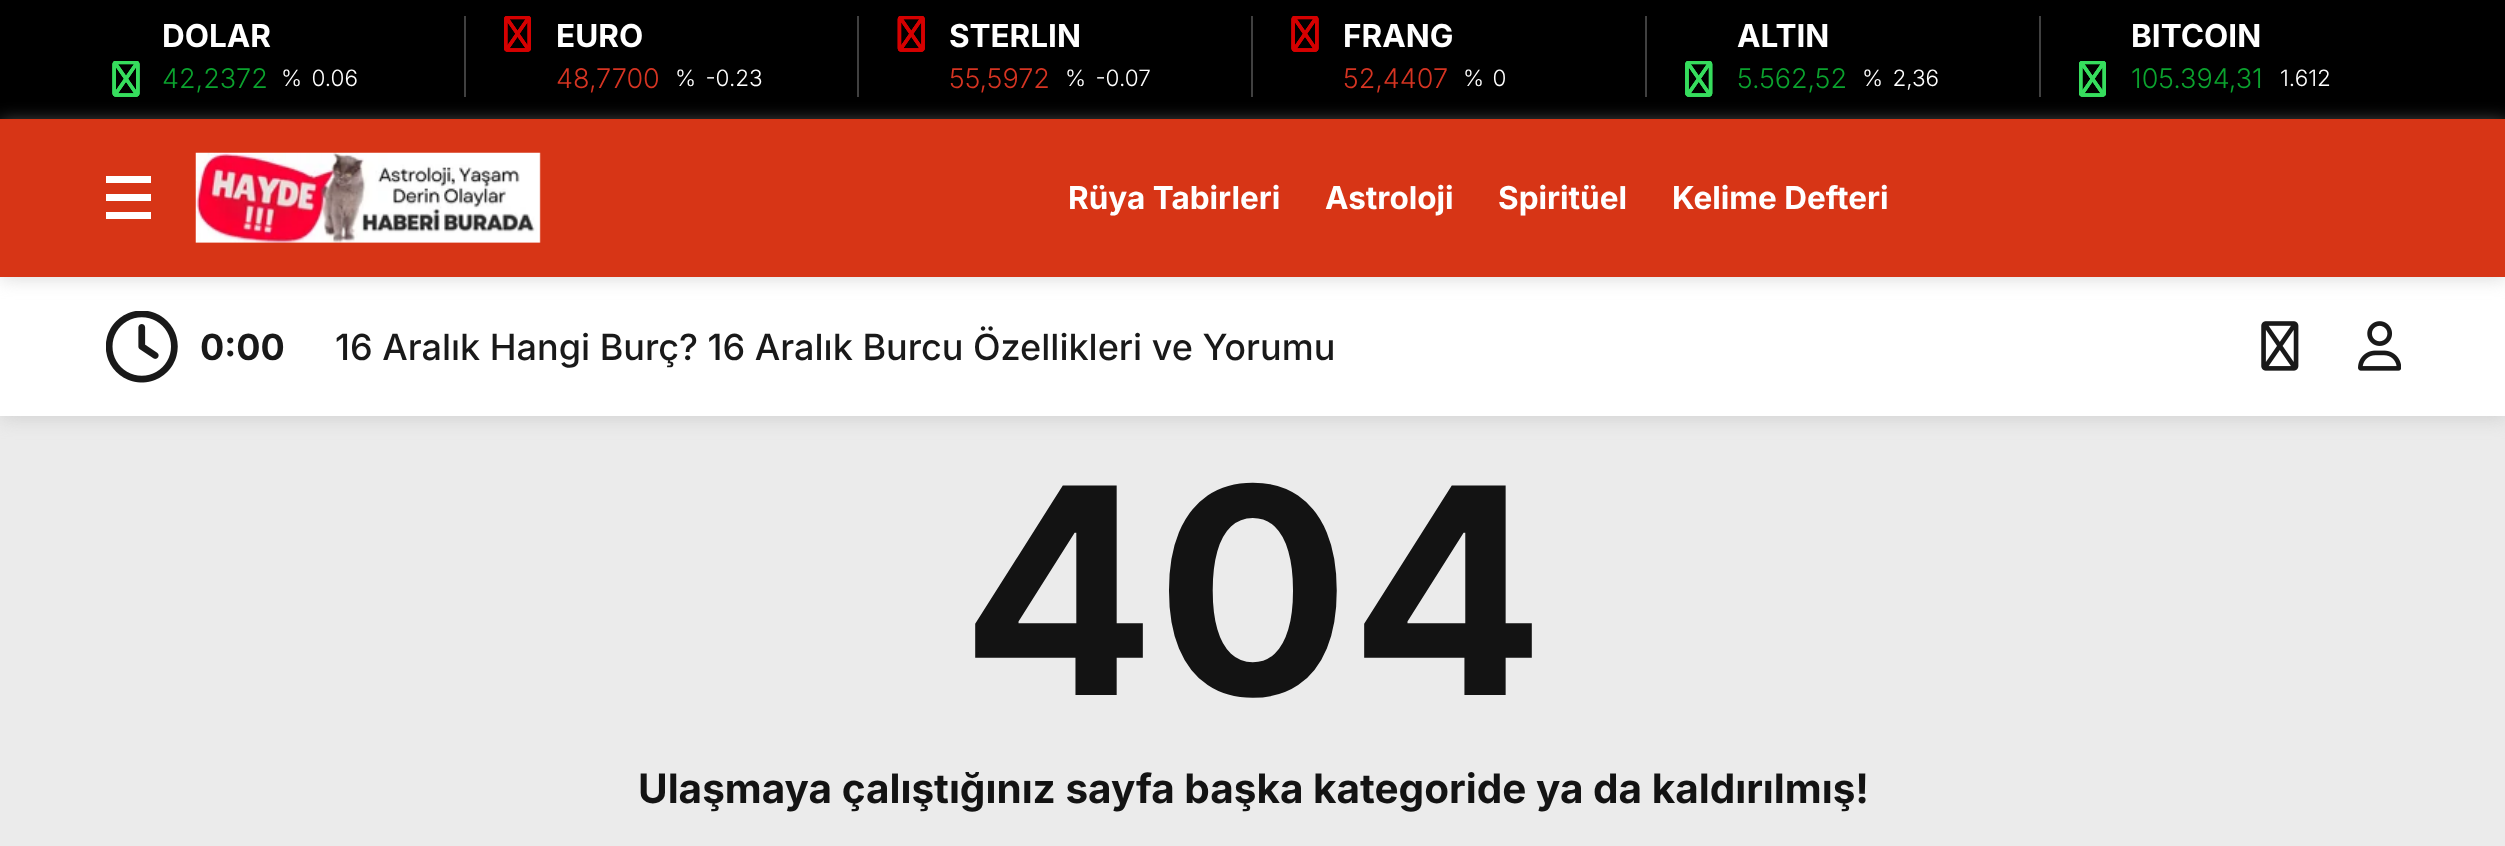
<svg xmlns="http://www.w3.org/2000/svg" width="2505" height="846">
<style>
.a{font:bold 31.5px Inter;fill:#fff}
.b{font:300 27px Inter;fill:#0ba22e}
.c{font:300 22.5px Inter;fill:#fff}
.d{font:300 27px Inter;fill:#d53422}
.e{font:bold 36px Inter;fill:#191919}
.f{font:500 36px Inter;fill:#191919}
.g{font:bold 288px Inter;fill:#131313}
.h{font:bold 40.5px Inter;fill:#131313}
</style>
<rect width="100%" height="100%" fill="#ebebeb"/>
<path fill="#000" d="M0 0h2505v119H0z"/>
<path fill="#404040" d="M464 16h2v81H464z"/>
<image href="1.png" x="112" y="61" width="28" height="36"/>
<image href="2.png" x="112" y="61" width="28" height="36"/>
<image href="3.png" x="112" y="61" width="28" height="36"/>
<path fill="#404040" d="M857 16h2v81H857z"/>
<image href="4.png" x="504" y="16" width="27" height="36"/>
<image href="5.png" x="504" y="16" width="27" height="36"/>
<image href="6.png" x="504" y="16" width="27" height="36"/>
<path fill="#404040" d="M1251 16h2v81H1251z"/>
<image href="7.png" x="897" y="16" width="28" height="36"/>
<image href="8.png" x="897" y="16" width="28" height="36"/>
<image href="9.png" x="897" y="16" width="28" height="36"/>
<path fill="#404040" d="M1645 16h2v81H1645z"/>
<image href="10.png" x="1291" y="16" width="28" height="36"/>
<image href="11.png" x="1291" y="16" width="28" height="36"/>
<image href="12.png" x="1291" y="16" width="28" height="36"/>
<path fill="#404040" d="M2039 16h2v81H2039z"/>
<image href="13.png" x="1685" y="61" width="28" height="36"/>
<image href="14.png" x="1685" y="61" width="28" height="36"/>
<image href="15.png" x="1685" y="61" width="28" height="36"/>
<image href="16.png" x="2079" y="61" width="27" height="36"/>
<image href="17.png" x="2079" y="61" width="27" height="36"/>
<image href="18.png" x="2079" y="61" width="27" height="36"/>
<path fill="#bababa80" filter="blur(9px)" d="M0 279h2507v140H0z"/>
<path fill="#fff" d="M0 277h2505v139H0z"/>
<path fill="#bababa80" filter="blur(9px)" d="M0 122h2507v157H0z"/>
<path fill="#d73516" d="M0 119h2505v158H0z"/>
<path fill="#fff" d="M106 194h45v7H106z"/>
<path fill="#fff" d="M106 176h45v7H106z"/>
<path fill="#fff" d="M106 212h45v7H106z"/>
<image href="19.png" x="195" y="152" width="346" height="91"/>
<image href="20.png" x="106" y="311" width="72" height="72"/>
<image href="21.png" x="2261" y="321" width="38" height="50"/>
<image href="22.png" x="2358" y="321" width="43" height="50"/>
<text class="a" x="162" y="47">DOLAR</text>
<text class="b" x="162" y="88">42,2372</text>
<text class="c" x="281" y="86" word-spacing="3">% 0.06</text>
<text class="a" x="556" y="47">EURO</text>
<text class="d" x="556" y="88">48,7700</text>
<text class="c" x="675" y="86" word-spacing="3">% -0.23</text>
<text class="a" x="949" y="47">STERLIN</text>
<text class="d" x="949" y="88">55,5972</text>
<text class="c" x="1065" y="86" word-spacing="3">% -0.07</text>
<text class="a" x="1343" y="47">FRANG</text>
<text class="d" x="1343" y="88">52,4407</text>
<text class="c" x="1463" y="86" word-spacing="2">% 0</text>
<text class="a" x="1737" y="47">ALTIN</text>
<text class="b" x="1737" y="88">5.562,52</text>
<text class="c" x="1862" y="86" word-spacing="3">% 2,36</text>
<text class="a" x="2131" y="47">BITCOIN</text>
<text class="b" x="2131" y="88">105.394,31</text>
<text class="c" x="2280" y="86">1.612</text>
<text class="a" x="1068" y="209">Rüya Tabirleri</text>
<text class="a" x="1325" y="209">Astroloji</text>
<text class="a" x="1498" y="209">Spiritüel</text>
<text class="a" x="1672" y="209">Kelime Defteri</text>
<text class="e" x="200" y="360">0:00</text>
<text class="f" x="335" y="360">16 Aralık Hangi Burç? 16 Aralık Burcu Özellikleri ve Yorumu</text>
<text class="g" x="961" y="695">404</text>
<text class="h" x="638" y="803">Ulaşmaya çalıştığınız sayfa başka kategoride ya da kaldırılmış!</text>
</svg>
